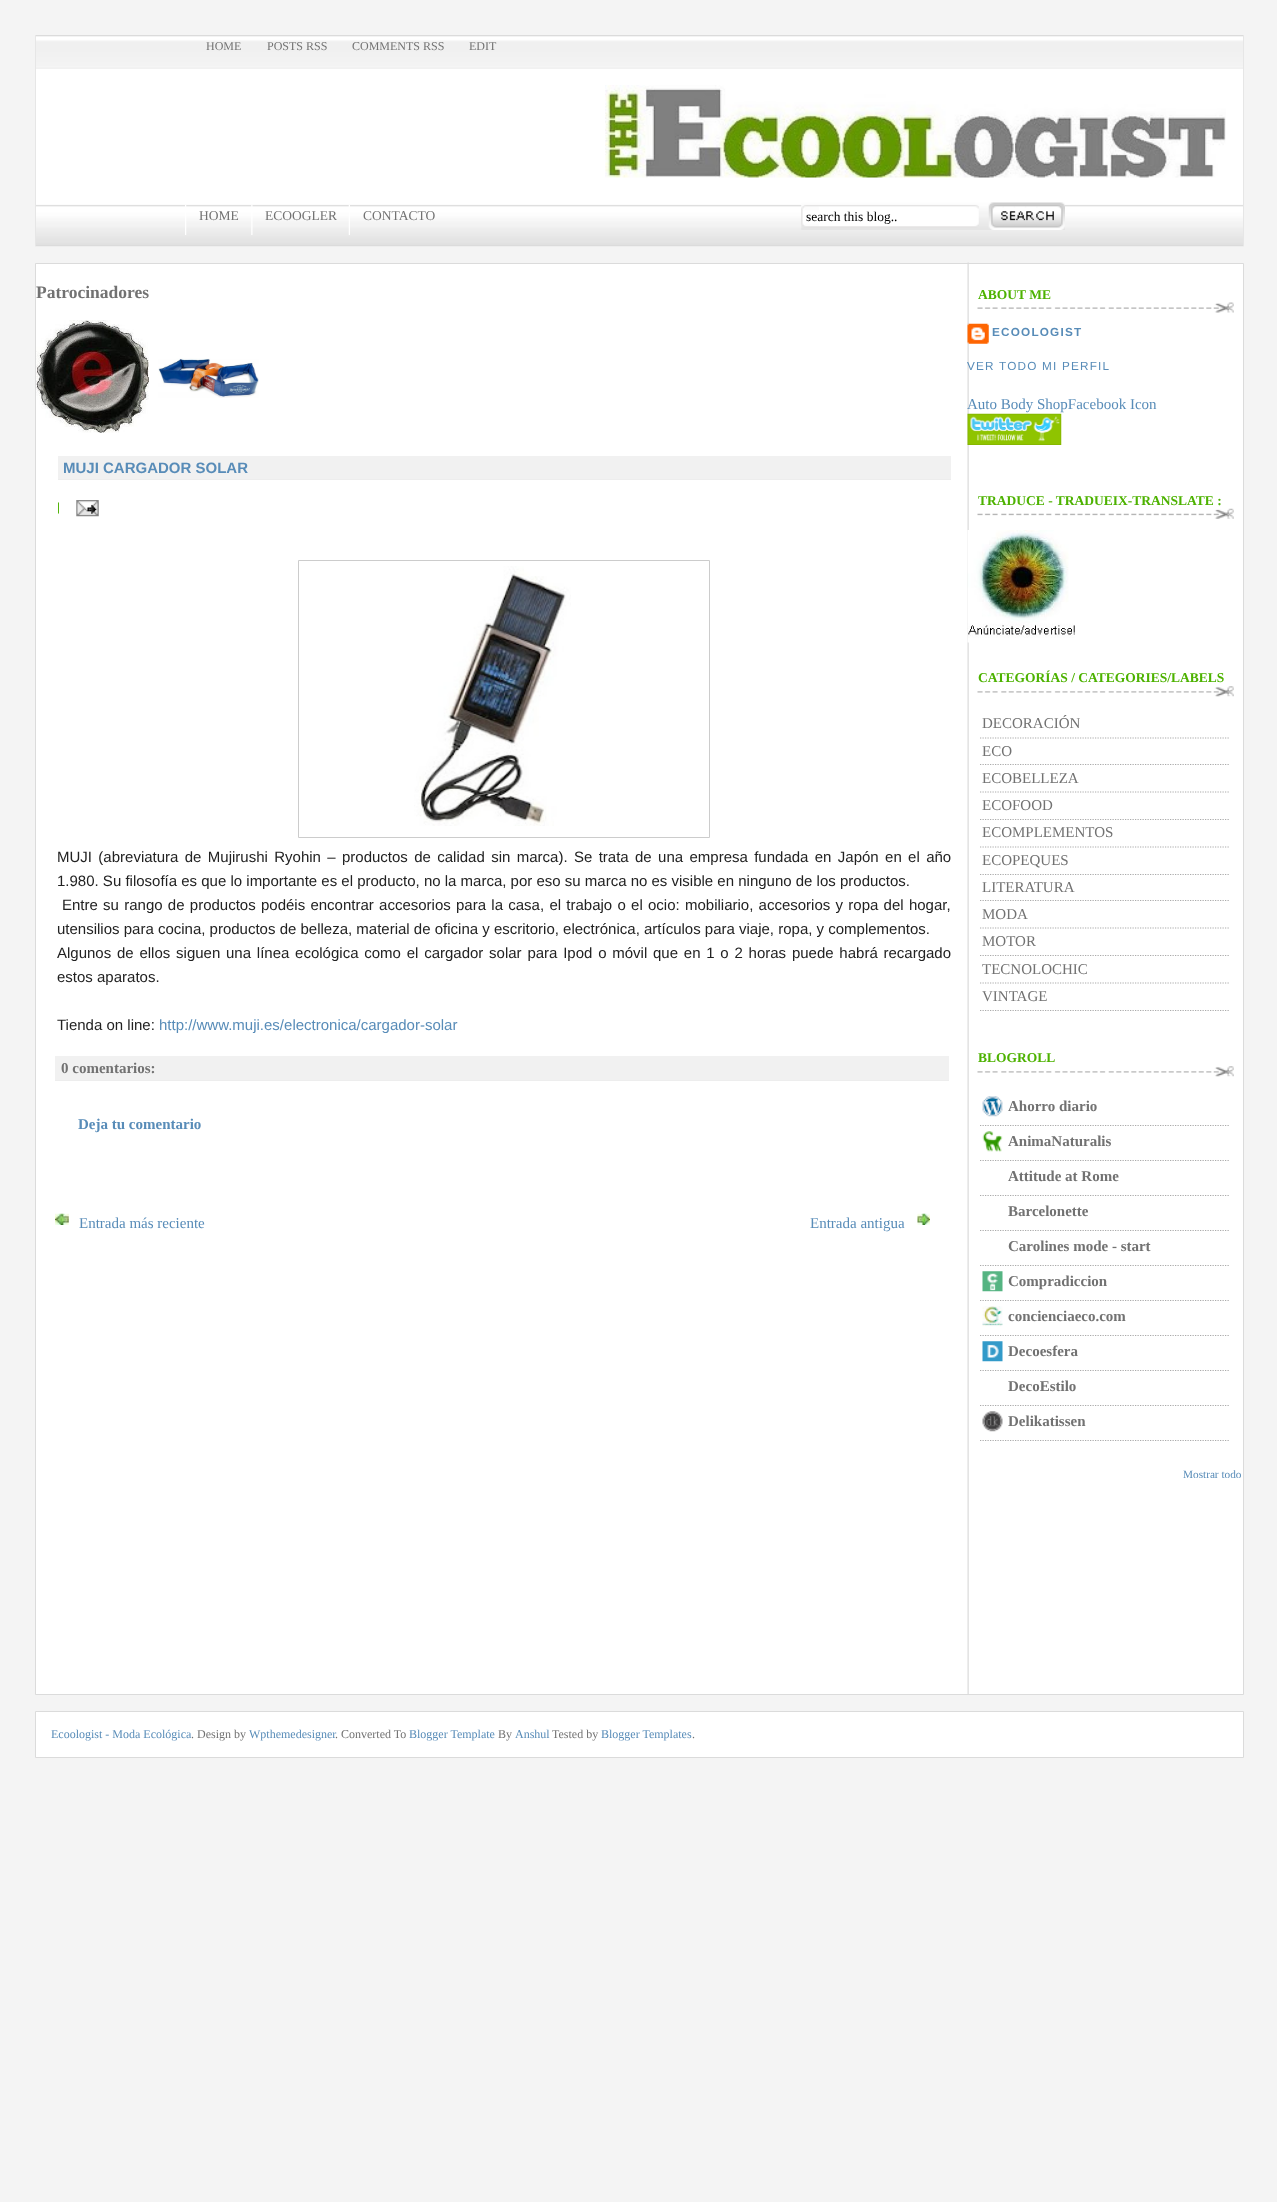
<svg xmlns="http://www.w3.org/2000/svg" width="1277" height="2202">
<style>
.a{font:12px Liberation Serif;fill:#727272}
.b{font:13.5px Liberation Serif;fill:#727272}
.c{font:13.5px Liberation Serif;fill:#000}
.d{font:bold 17.5px Liberation Serif;fill:#727272}
.e{font:bold 15px Liberation Sans;fill:#588cb8}
.f{font:11.75px Liberation Sans;letter-spacing:1.2px;fill:#4db200}
.g{font:15px Liberation Sans;fill:#222}
.h{font:15px Liberation Sans;fill:#588cb8}
.i{font:bold 15px Liberation Serif;fill:#727272}
.j{font:bold 15px Liberation Serif;fill:#588cb8}
.k{font:15px Liberation Serif;fill:#588cb8}
.l{font:bold 13.5px Liberation Serif;fill:#4db200}
.m{font:bold 11.75px Liberation Sans;letter-spacing:1.2px;fill:#588cb8}
.n{font:11.75px Liberation Sans;letter-spacing:1.2px;fill:#588cb8}
.o{font:15px Liberation Serif;fill:#727272}
.p{font:11.25px Liberation Serif;fill:#588cb8}
.q{font:12px Liberation Serif;fill:#588cb8}
</style>
<rect width="100%" height="100%" fill="#f4f4f4"/>
<image href="1.png" x="35" y="35" width="1209" height="212"/>
<path fill="#e6e6e6" d="M1243 35h1v211H1243z"/>
<path fill="#e6e6e6" d="M35 35h1v211H35z"/>
<image href="2.png" x="605" y="85" width="621" height="93"/>
<image href="3.png" x="185" y="205" width="2" height="30"/>
<image href="4.png" x="251" y="205" width="2" height="30"/>
<image href="5.png" x="348" y="205" width="2" height="30"/>
<image href="6.png" x="801" y="202" width="264" height="28"/>
<path fill="#fff" d="M36 264h1207v1430H36z"/>
<image href="7.png" x="967" y="262" width="2" height="1432"/>
<path fill="none" stroke="#dbdbdb" d="M35.5 263.5h1208v1431H35.5z"/>
<image href="8.png" x="36" y="320" width="113" height="113"/>
<image href="9.png" x="158" y="358" width="101" height="40"/>
<path fill="#f1f1f1" d="M58 456h893v23H58z"/>
<path fill="#ededed" d="M58 479h893v1H58z"/>
<image href="10.png" x="76" y="500" width="23" height="17"/>
<path fill="none" stroke="#ccc" d="M298.5 560.5h411v277H298.5z"/>
<image href="11.png" x="414" y="566" width="157" height="260"/>
<path fill="#f1f1f1" d="M55 1056h894v24H55z"/>
<path fill="#ededed" d="M55 1080h894v1H55z"/>
<image href="12.png" x="55" y="1213" width="14" height="12"/>
<image href="13.png" x="917" y="1213" width="13" height="12"/>
<image href="14.png" x="977" y="302" width="257" height="11"/>
<image href="15.png" x="967" y="323" width="22" height="21"/>
<image href="16.png" x="967" y="413" width="95" height="32"/>
<image href="17.png" x="977" y="508" width="257" height="11"/>
<image href="18.png" x="967" y="530" width="108" height="113"/>
<image href="19.png" x="977" y="686" width="257" height="11"/>
<path fill="none" stroke="#ababab" stroke-width="1.2" stroke-dasharray="1.25 1.25" d="M980 738h250"/>
<path fill="none" stroke="#ababab" stroke-width="1.2" stroke-dasharray="1.25 1.25" d="M980 764.5h250"/>
<path fill="none" stroke="#ababab" stroke-width="1.2" stroke-dasharray="1.25 1.25" d="M980 792h250"/>
<path fill="none" stroke="#ababab" stroke-width="1.2" stroke-dasharray="1.25 1.25" d="M980 819.5h250"/>
<path fill="none" stroke="#ababab" stroke-width="1.2" stroke-dasharray="1.25 1.25" d="M980 847h250"/>
<path fill="none" stroke="#ababab" stroke-width="1.2" stroke-dasharray="1.25 1.25" d="M980 874.5h250"/>
<path fill="none" stroke="#ababab" stroke-width="1.2" stroke-dasharray="1.25 1.25" d="M980 900.5h250"/>
<path fill="none" stroke="#ababab" stroke-width="1.2" stroke-dasharray="1.25 1.25" d="M980 928h250"/>
<path fill="none" stroke="#ababab" stroke-width="1.2" stroke-dasharray="1.25 1.25" d="M980 955.5h250"/>
<path fill="none" stroke="#ababab" stroke-width="1.2" stroke-dasharray="1.25 1.25" d="M980 983h250"/>
<path fill="none" stroke="#ababab" stroke-width="1.2" stroke-dasharray="1.25 1.25" d="M980 1010.5h250"/>
<image href="19.png" x="977" y="1066" width="257" height="11"/>
<path fill="none" stroke="#ababab" stroke-width="1.2" stroke-dasharray="1.25 1.25" d="M980 1125.5h250"/>
<image href="20.png" x="982" y="1096" width="21" height="21"/>
<path fill="none" stroke="#ababab" stroke-width="1.2" stroke-dasharray="1.25 1.25" d="M980 1160.5h250"/>
<image href="21.png" x="982" y="1131" width="21" height="21"/>
<path fill="none" stroke="#ababab" stroke-width="1.2" stroke-dasharray="1.25 1.25" d="M980 1195.5h250"/>
<path fill="none" stroke="#ababab" stroke-width="1.2" stroke-dasharray="1.25 1.25" d="M980 1230.5h250"/>
<path fill="none" stroke="#ababab" stroke-width="1.2" stroke-dasharray="1.25 1.25" d="M980 1265.5h250"/>
<path fill="none" stroke="#ababab" stroke-width="1.2" stroke-dasharray="1.25 1.25" d="M980 1300.5h250"/>
<image href="22.png" x="982" y="1271" width="21" height="21"/>
<path fill="none" stroke="#ababab" stroke-width="1.2" stroke-dasharray="1.25 1.25" d="M980 1335.5h250"/>
<image href="23.png" x="982" y="1306" width="21" height="21"/>
<path fill="none" stroke="#ababab" stroke-width="1.2" stroke-dasharray="1.25 1.25" d="M980 1370.5h250"/>
<image href="24.png" x="982" y="1341" width="21" height="21"/>
<path fill="none" stroke="#ababab" stroke-width="1.2" stroke-dasharray="1.25 1.25" d="M980 1405.5h250"/>
<path fill="none" stroke="#ababab" stroke-width="1.2" stroke-dasharray="1.25 1.25" d="M980 1440.5h250"/>
<image href="25.png" x="982" y="1411" width="21" height="21"/>
<path fill="#fff" stroke="#dbdbdb" d="M35.5 1711.5h1208v46H35.5z"/>
<text class="a" x="206" y="50">HOME</text>
<text class="a" x="267" y="50">POSTS RSS</text>
<text class="a" x="352" y="50">COMMENTS RSS</text>
<text class="a" x="469" y="50">EDIT</text>
<text class="b" x="199" y="220">HOME</text>
<text class="b" x="265" y="220">ECOOGLER</text>
<text class="b" x="363" y="220">CONTACTO</text>
<text class="c" x="806" y="221">search this blog..</text>
<text class="d" x="36" y="298">Patrocinadores</text>
<text class="e" x="63" y="473">MUJI CARGADOR SOLAR</text>
<text class="f" x="57" y="511">|</text>
<text class="g" x="57" y="862" word-spacing="2.2">MUJI (abreviatura de Mujirushi Ryohin – productos de calidad sin marca). Se trata de una empresa fundada en Japón en el año</text>
<text class="g" x="57" y="886">1.980. Su filosofía es que lo importante es el producto, no la marca, por eso su marca no es visible en ninguno de los productos.</text>
<text class="g" x="62" y="910" word-spacing="1.1">Entre su rango de productos podéis encontrar accesorios para la casa, el trabajo o el ocio: mobiliario, accesorios y ropa del hogar,</text>
<text class="g" x="57" y="934">utensilios para cocina, productos de belleza, material de oficina y escritorio, electrónica, artículos para viaje, ropa, y complementos.</text>
<text class="g" x="57" y="958" word-spacing="1.6">Algunos de ellos siguen una línea ecológica como el cargador solar para Ipod o móvil que en 1 o 2 horas puede habrá recargado</text>
<text class="g" x="57" y="982">estos aparatos.</text>
<text class="g" x="57" y="1030">Tienda on line:</text>
<text class="h" x="159" y="1030">http://www.muji.es/electronica/cargador-solar</text>
<text class="i" x="61" y="1073">0 comentarios:</text>
<text class="j" x="78" y="1129">Deja tu comentario</text>
<text class="k" x="79" y="1228">Entrada más reciente</text>
<text class="k" x="810" y="1228">Entrada antigua</text>
<text class="l" x="978" y="299">ABOUT ME</text>
<text class="m" x="992" y="336">ECOOLOGIST</text>
<text class="n" x="967" y="370">VER TODO MI PERFIL</text>
<text class="k" x="967" y="409">Auto Body ShopFacebook Icon</text>
<text class="l" x="978" y="505">TRADUCE - TRADUEIX-TRANSLATE :</text>
<text class="l" x="978" y="682">CATEGORÍAS / CATEGORIES/LABELS</text>
<text class="o" x="982" y="728">DECORACIÓN</text>
<text class="o" x="982" y="756">ECO</text>
<text class="o" x="982" y="783">ECOBELLEZA</text>
<text class="o" x="982" y="810">ECOFOOD</text>
<text class="o" x="982" y="837">ECOMPLEMENTOS</text>
<text class="o" x="982" y="865">ECOPEQUES</text>
<text class="o" x="982" y="892">LITERATURA</text>
<text class="o" x="982" y="919">MODA</text>
<text class="o" x="982" y="946">MOTOR</text>
<text class="o" x="982" y="974">TECNOLOCHIC</text>
<text class="o" x="982" y="1001">VINTAGE</text>
<text class="l" x="978" y="1062">BLOGROLL</text>
<text class="i" x="1008" y="1111">Ahorro diario</text>
<text class="i" x="1008" y="1146">AnimaNaturalis</text>
<text class="i" x="1008" y="1181">Attitude at Rome</text>
<text class="i" x="1008" y="1216">Barcelonette</text>
<text class="i" x="1008" y="1251">Carolines mode - start</text>
<text class="i" x="1008" y="1286">Compradiccion</text>
<text class="i" x="1008" y="1321">concienciaeco.com</text>
<text class="i" x="1008" y="1356">Decoesfera</text>
<text class="i" x="1008" y="1391">DecoEstilo</text>
<text class="i" x="1008" y="1426">Delikatissen</text>
<text class="p" x="1183" y="1478">Mostrar todo</text>
<text class="q" x="51" y="1738">Ecoologist - Moda Ecológica</text>
<text class="a" x="191" y="1738">. Design by</text>
<text class="q" x="249" y="1738">Wpthemedesigner</text>
<text class="a" x="335" y="1738">. Converted To</text>
<text class="q" x="409" y="1738">Blogger Template</text>
<text class="a" x="498" y="1738">By</text>
<text class="q" x="515" y="1738">Anshul</text>
<text class="a" x="552" y="1738">Tested by</text>
<text class="q" x="601" y="1738">Blogger Templates</text>
<text class="a" x="692" y="1738">.</text>
</svg>
